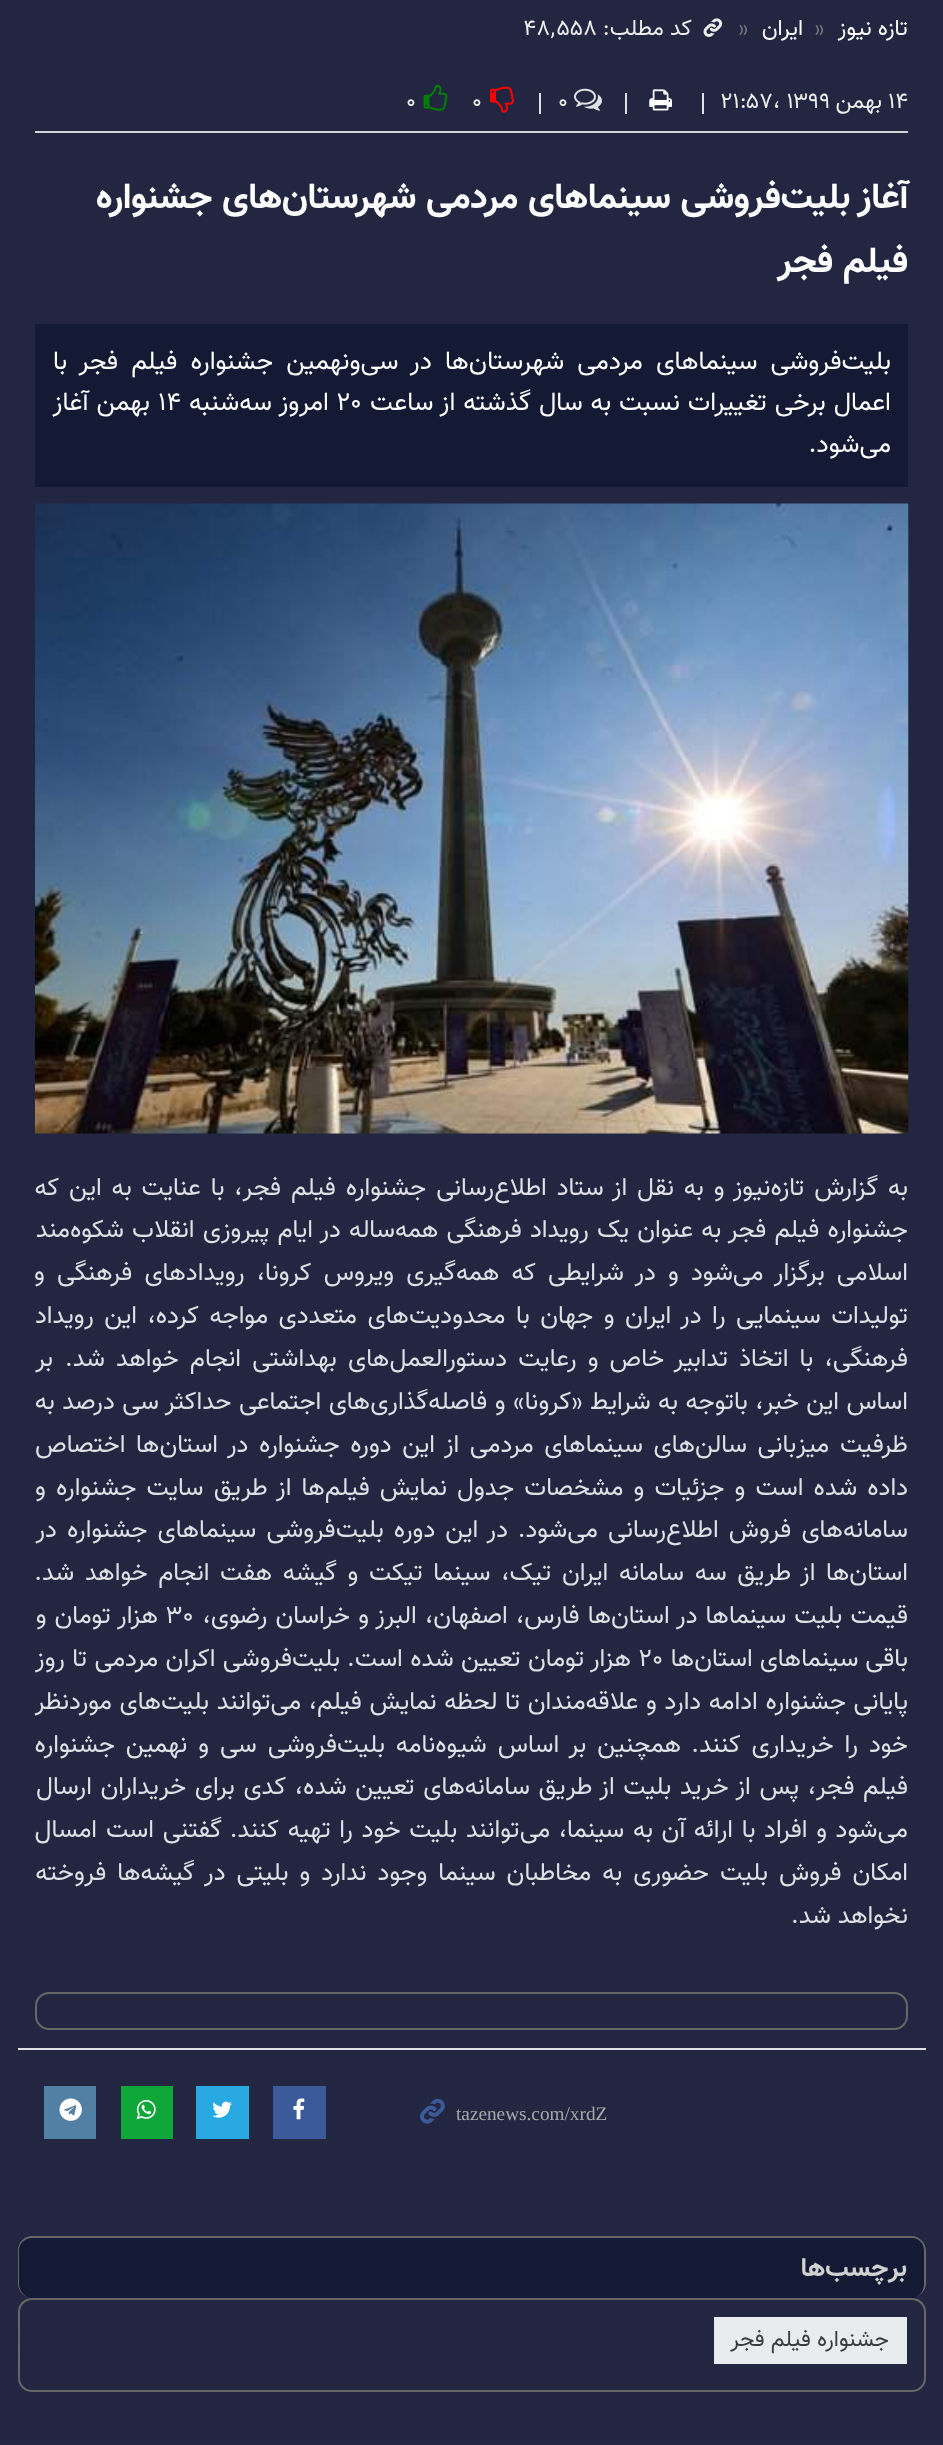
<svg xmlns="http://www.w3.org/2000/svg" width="943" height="2445">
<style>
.a{font:22.5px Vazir;direction:rtl;fill:#fff}
.b{font:22.5px Vazir;fill:#6c757d}
.c{font:22.5px Vazir;direction:rtl;fill:#eee}
.d{font:22.5px Vazir;fill:#eee}
.e{font:bold 36.4px Vazir;direction:rtl;fill:#fff}
.f{font:25.9px Vazir;direction:rtl;fill:#fff}
.g{font:25.9px Vazir;fill:#fff}
.h{font:25.2px Vazir;direction:rtl;fill:#dee2e6}
.i{font:25.2px Vazir;fill:#dee2e6}
.j{font:19.25px Liberation Serif;fill:#a9a9a9}
.k{font:bold 26.5px Vazir;direction:rtl;fill:#d1d1d1}
.l{font:22.5px Vazir;direction:rtl;fill:#3b3b3b}
</style>
<rect width="100%" height="100%" fill="#222640"/>
<image href="1.png" x="703" y="18" width="20" height="19"/>
<path fill="#dee2e6" d="M702 93h2v21H702z"/>
<image href="2.png" x="649" y="89" width="23" height="22"/>
<path fill="#dee2e6" d="M625 93h2v21H625z"/>
<image href="3.png" x="574" y="88" width="28" height="23"/>
<path fill="#dee2e6" d="M539 93h2v21H539z"/>
<image href="4.png" x="490" y="86" width="24" height="27"/>
<image href="5.png" x="423" y="84" width="25" height="27"/>
<path fill="#ced4da" d="M35 131h873v2H35z"/>
<path fill="#141a33" d="M35 324h873v163H35z"/>
<image href="6.png" x="35" y="503" width="874" height="631"/>
<rect fill="none" stroke="#676767" stroke-width="2" x="36" y="1993" width="871" height="36" rx="13"/>
<path fill="#dee2e6" d="M18 2048h908v2H18z"/>
<image href="7.png" x="420" y="2098" width="25" height="26"/>
<path fill="#3b5a9a" d="M273 2086h53v53H273z"/>
<image href="8.png" x="293" y="2098" width="12" height="22"/>
<path fill="#28a9e2" d="M196 2086h53v53H196z"/>
<image href="9.png" x="212" y="2101" width="20" height="17"/>
<path fill="#0fa739" d="M121 2086h52v53H121z"/>
<image href="10.png" x="136" y="2100" width="20" height="20"/>
<path fill="#5280a4" d="M44 2086h52v53H44z"/>
<image href="11.png" x="59" y="2098" width="23" height="23"/>
<rect fill="#141a33" x="18" y="2237" width="908" height="61" rx="14"/>
<path fill="#676767" fill-rule="evenodd" d="M32 2236h880c7 0 14 7 14 14v34c0 7-7 14-14 14h-880c-8 0-14-7-14-14v-34c0-7 6-14 14-14zm0 2h880c7 0 12 6 12 12v34c0 7-5 14-12 14h-880c-7 0-13-7-13-14v-34c0-6 6-12 13-12z"/>
<rect fill="none" stroke="#676767" stroke-width="2" x="19" y="2299" width="906" height="92" rx="13"/>
<path fill="#e9ecef" d="M714 2317h193v47H714z"/>
<text class="a" x="908" y="35">تازه نیوز</text>
<text class="b" x="814" y="35">»</text>
<text class="a" x="803" y="35">ایران</text>
<text class="b" x="738" y="35">»</text>
<text class="c" x="692" y="35">کد مطلب:</text>
<text class="d" x="524" y="35">۴۸٬۵۵۸</text>
<text class="d" x="888" y="108">۱۴</text>
<text class="c" x="882" y="108">بهمن</text>
<text class="d" x="721" y="108">۲۱:۵۷، ۱۳۹۹</text>
<text class="d" x="558" y="108">۰</text>
<text class="d" x="472" y="108">۰</text>
<text class="d" x="406" y="108">۰</text>
<text class="e" x="908" y="208">آغاز بلیت‌فروشی سینماهای مردمی شهرستان‌های جشنواره</text>
<text class="e" x="908" y="272">فیلم فجر</text>
<text class="f" x="891" y="369" word-spacing="6">بلیت‌فروشی سینماهای مردمی شهرستان‌ها در سی‌ونهمین جشنواره فیلم فجر با</text>
<text class="f" x="891" y="410" word-spacing="0.75">اعمال برخی تغییرات نسبت به سال گذشته از ساعت</text>
<text class="g" x="337" y="410">۲۰</text>
<text class="f" x="329" y="410" word-spacing="1">امروز سه‌شنبه</text>
<text class="g" x="158" y="410">۱۴</text>
<text class="f" x="150" y="410" word-spacing="1">بهمن آغاز</text>
<text class="f" x="891" y="452">می‌شود.</text>
<text class="h" x="908" y="1195" word-spacing="3">به گزارش تازه‌نیوز و به نقل از ستاد اطلاع‌رسانی جشنواره فیلم فجر، با عنایت به این که</text>
<text class="h" x="908" y="1237" word-spacing="1.3">جشنواره فیلم فجر به عنوان یک رویداد فرهنگی همه‌ساله در ایام پیروزی انقلاب شکوه‌مند</text>
<text class="h" x="908" y="1280" word-spacing="5.25">اسلامی برگزار می‌شود و در شرایطی که همه‌گیری ویروس کرونا، رویدادهای فرهنگی و</text>
<text class="h" x="908" y="1323" word-spacing="3.6">تولیدات سینمایی را در ایران و جهان با محدودیت‌های متعددی مواجه کرده، این رویداد</text>
<text class="h" x="908" y="1366" word-spacing="4.25">فرهنگی، با اتخاذ تدابیر خاص و رعایت دستورالعمل‌های بهداشتی انجام خواهد شد.</text>
<text class="h" x="53" y="1366">بر</text>
<text class="h" x="908" y="1409" word-spacing="0.5">اساس این خبر، باتوجه به شرایط «کرونا» و فاصله‌گذاری‌های اجتماعی حداکثر سی درصد به</text>
<text class="h" x="908" y="1452" word-spacing="3.75">ظرفیت میزبانی سالن‌های‌ سینماهای مردمی از این دوره جشنواره در استان‌ها اختصاص</text>
<text class="h" x="908" y="1495" word-spacing="3.25">داده شده است و جزئیات و مشخصات جدول نمایش فیلم‌ها از طریق سایت جشنواره و</text>
<text class="h" x="908" y="1537" word-spacing="3.25">سامانه‌های فروش اطلاع‌رسانی می‌شود.</text>
<text class="h" x="508" y="1537" word-spacing="3.25">در این دوره بلیت‌فروشی سینماهای جشنواره در</text>
<text class="h" x="908" y="1580" word-spacing="3.75">استان‌ها از طریق سه سامانه ایران تیک، سینما تیکت و گیشه هفت انجام خواهد شد.</text>
<text class="h" x="908" y="1623" word-spacing="1.25">قیمت بلیت سینماها در استان‌ها فارس، اصفهان، البرز و خراسان رضوی،</text>
<text class="i" x="166" y="1623">۳۰</text>
<text class="h" x="158" y="1623" word-spacing="1">هزار تومان و</text>
<text class="h" x="908" y="1666">باقی سینماهای استان‌ها</text>
<text class="i" x="639" y="1666">۲۰</text>
<text class="h" x="631" y="1666" word-spacing="0.5">هزار تومان تعیین شده است.</text>
<text class="h" x="340" y="1666" word-spacing="0.5">بلیت‌فروشی اکران مردمی تا روز</text>
<text class="h" x="908" y="1709" word-spacing="0.75">پایانی جشنواره ادامه دارد و علاقه‌مندان تا لحظه نمایش فیلم، می‌توانند بلیت‌های موردنظر</text>
<text class="h" x="908" y="1752" word-spacing="4">خود را خریداری کنند.</text>
<text class="h" x="681" y="1752" word-spacing="4">همچنین بر اساس شیوه‌نامه بلیت‌فروشی سی و نهمین جشنواره</text>
<text class="h" x="908" y="1794" word-spacing="1.75">فیلم فجر، پس از خرید بلیت از طریق سامانه‌های تعیین شده، کدی برای خریداران ارسال</text>
<text class="h" x="908" y="1837" word-spacing="1.75">می‌شود و افراد با ارائه آن به سینما، می‌توانند بلیت خود را تهیه کنند.</text>
<text class="h" x="222" y="1837" word-spacing="2">گفتنی است امسال</text>
<text class="h" x="908" y="1880" word-spacing="4.1">امکان فروش بلیت حضوری به مخاطبان سینما وجود ندارد و بلیتی در گیشه‌ها فروخته</text>
<text class="h" x="908" y="1923">نخواهد شد.</text>
<text class="j" x="456" y="2120">tazenews.com/xrdZ</text>
<text class="k" x="907" y="2276">برچسب‌ها</text>
<text class="l" x="889" y="2346">جشنواره فیلم فجر</text>
</svg>
